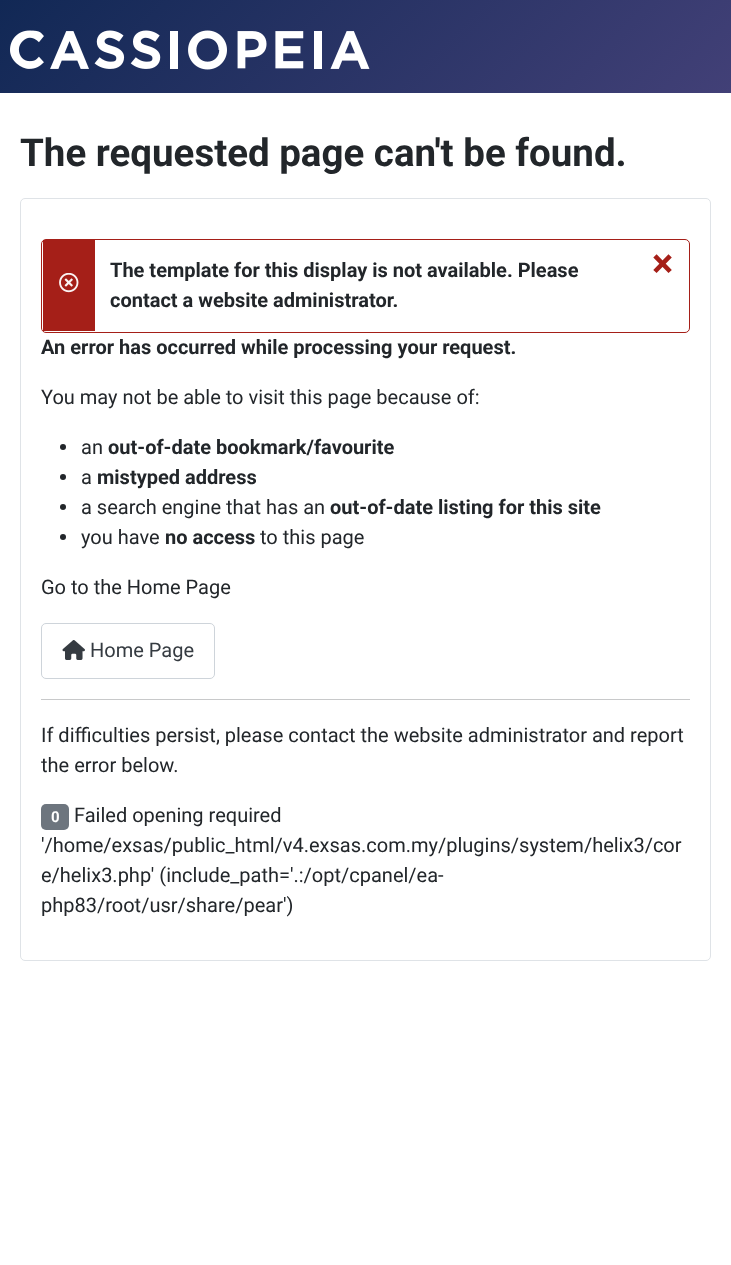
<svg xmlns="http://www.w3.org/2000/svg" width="731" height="1265">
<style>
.a{font:bold 38.5px Roboto;fill:#22262a}
.b{font:bold 20px Roboto;fill:#22262a}
.c{font:bold 40px Roboto;fill:#a51f18}
.d{font:20px Roboto;fill:#22262a}
.e{font:20px Roboto;fill:#353b41}
.f{font:bold 15px Roboto;fill:#fff}
</style>
<defs>
<linearGradient id="g1" gradientUnits="userSpaceOnUse" x1="160" y1="-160" x2="572" y2="252"><stop offset="0" stop-color="#112855"/><stop offset="1" stop-color="#424077"/></linearGradient>
</defs>
<rect width="100%" height="100%" fill="#fff"/>
<path fill="url(#g1)" d="M0 0h731v93H0z"/>
<image href="1.png" x="10" y="30" width="360" height="40"/>
<rect fill="none" stroke="#dfe3e7" x="20.5" y="198.5" width="690" height="762" rx="4.5"/>
<rect fill="none" stroke="#a51f18" x="41.5" y="239.5" width="648" height="93" rx="4.5"/>
<path fill="#a51f18" d="M43 240h52v91H43z"/>
<image href="2.png" x="59" y="273" width="20" height="20"/>
<circle fill="#22262a" cx="63" cy="447" r="3"/>
<circle fill="#22262a" cx="63" cy="477" r="3"/>
<circle fill="#22262a" cx="63" cy="507" r="3"/>
<circle fill="#22262a" cx="63" cy="537" r="3"/>
<rect fill="none" stroke="#ced4da" x="41.5" y="623.5" width="173" height="55" rx="4.5"/>
<image href="3.png" x="62" y="640" width="23" height="20"/>
<path fill="#c8c9ca" d="M41 699h649v1H41z"/>
<rect fill="#6d757e" x="41" y="804" width="28" height="26" rx="5"/>
<text class="a" x="20" y="166">The requested page can't be found.</text>
<text class="b" x="110" y="277">The template for this display is not available. Please</text>
<text class="b" x="110" y="307">contact a website administrator.</text>
<text class="c" x="652" y="277">×</text>
<text class="b" x="41" y="354">An error has occurred while processing your request.</text>
<text class="d" x="41" y="404">You may not be able to visit this page because of:</text>
<text class="d" x="81" y="454">an</text>
<text class="b" x="108" y="454">out-of-date bookmark/favourite</text>
<text class="d" x="81" y="484">a</text>
<text class="b" x="97" y="484">mistyped address</text>
<text class="d" x="81" y="514">a search engine that has an</text>
<text class="b" x="330" y="514">out-of-date listing for this site</text>
<text class="d" x="81" y="544">you have</text>
<text class="b" x="165" y="544">no access</text>
<text class="d" x="260" y="544">to this page</text>
<text class="d" x="41" y="594">Go to the Home Page</text>
<text class="e" x="90" y="657">Home Page</text>
<text class="d" x="41" y="742">If difficulties persist, please contact the website administrator and report</text>
<text class="d" x="41" y="772">the error below.</text>
<text class="f" x="51" y="822">0</text>
<text class="d" x="74" y="822">Failed opening required</text>
<text class="d" x="41" y="852">'/home/exsas/public_html/v4.exsas.com.my/plugins/system/helix3/cor</text>
<text class="d" x="41" y="882">e/helix3.php' (include_path='.:/opt/cpanel/ea-</text>
<text class="d" x="41" y="912">php83/root/usr/share/pear')</text>
</svg>
